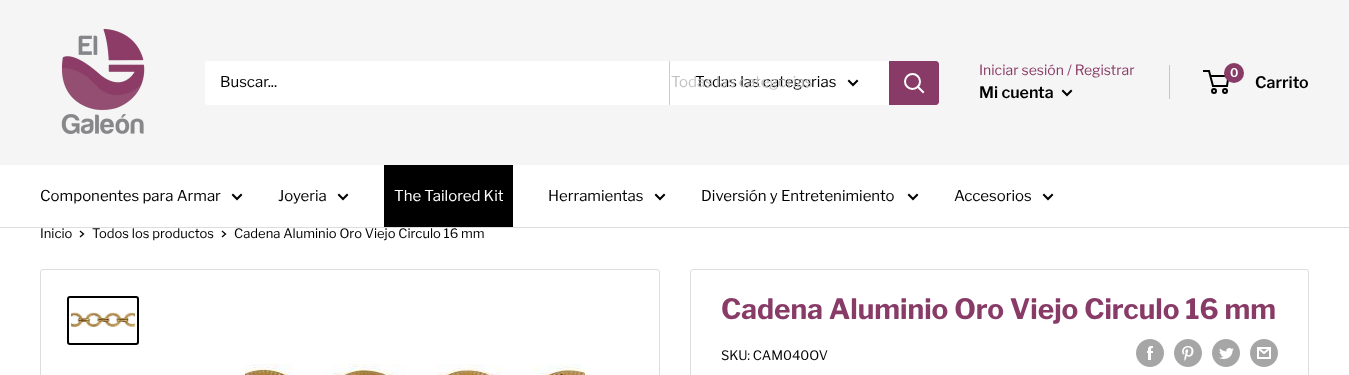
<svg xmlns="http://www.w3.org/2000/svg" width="1349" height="375">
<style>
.a{font:15px Libre Franklin;fill:#000}
.b{font:15px Libre Franklin;fill:#c2c2c2}
.c{font:14px Libre Franklin;fill:#893b67}
.d{font:600 16px Libre Franklin;fill:#000}
.e{font:600 12px Libre Franklin;fill:#fff}
.f{font:15px Libre Franklin;fill:#fff}
.g{font:13px Libre Franklin;fill:#000}
.h{font:bold 28px Libre Franklin;fill:#893b67}
</style>
<rect width="100%" height="100%" fill="#fff"/>
<path fill="#f5f5f5" d="M0 0h1349v165H0z"/>
<image href="1.png" x="61" y="28" width="104" height="107"/>
<rect fill="#fff" x="205" y="61" width="734" height="44" rx="3"/>
<path fill="#dcc4d1" d="M669 61h1v44H669z"/>
<path fill="none" stroke="#000" stroke-width="2" stroke-linecap="square" d="M857 81l-4 4l-4-4"/>
<path fill="#893b67" d="M889 61h47c1.5 0 3 1.5 3 3v38c0 1.5-1.5 3-3 3h-47z"/>
<path fill="none" stroke="#fff" stroke-width="2" stroke-linecap="square" d="M923 92l-5-5"/>
<circle fill="none" stroke="#fff" stroke-width="2" cx="912.5" cy="81.5" r="7.5"/>
<path fill="#d5bdca" d="M1169 65h1v34H1169z"/>
<path fill="none" stroke="#000" stroke-width="2" stroke-linecap="square" d="M1071 91l-4 4l-4-4"/>
<circle fill="none" stroke="#000" stroke-width="2" cx="1214" cy="91" r="2"/>
<circle fill="none" stroke="#000" stroke-width="2" cx="1225" cy="91" r="2"/>
<path fill="none" stroke="#000" stroke-width="2" d="M1210.5 76h18l-1.5 10h-14l-4-15h-6"/>
<circle fill="#893b67" cx="1234" cy="73" r="10"/>
<path fill="#ddd" d="M0 227h1349v1H0z"/>
<path fill="none" stroke="#000" stroke-width="2" stroke-linecap="square" d="M241 195l-4 4l-4-4"/>
<path fill="none" stroke="#000" stroke-width="2" stroke-linecap="square" d="M347 195l-4 4l-4-4"/>
<path fill="#000" d="M384 165h129v62H384z"/>
<path fill="none" stroke="#000" stroke-width="2" stroke-linecap="square" d="M664 195l-4 4l-4-4"/>
<path fill="none" stroke="#000" stroke-width="2" stroke-linecap="square" d="M917 195l-4 4l-4-4"/>
<path fill="none" stroke="#000" stroke-width="2" stroke-linecap="square" d="M1052 195l-4 4l-4-4"/>
<path fill="none" stroke="#000" stroke-width="1.3" stroke-linecap="square" d="M80.5 231.5l3 2.5l-3 2.5"/>
<path fill="none" stroke="#000" stroke-width="1.3" stroke-linecap="square" d="M222.5 231.5l3 2.5l-3 2.5"/>
<rect fill="none" stroke="#ddd" x="40.5" y="269.5" width="619" height="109" rx="2.5"/>
<rect fill="none" stroke="#000" stroke-width="2" x="68" y="297" width="70" height="47" rx="2"/>
<image href="2.png" x="71" y="312" width="64" height="16"/>
<image href="3.png" x="245" y="364" width="340" height="11"/>
<rect fill="none" stroke="#ddd" x="690.5" y="269.5" width="618" height="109" rx="2.5"/>
<image href="4.png" x="1136" y="339" width="28" height="28"/>
<image href="5.png" x="1174" y="339" width="28" height="28"/>
<image href="6.png" x="1212" y="339" width="28" height="28"/>
<image href="7.png" x="1250" y="339" width="28" height="28"/>
<text class="a" x="220" y="87">Buscar...</text>
<text class="a" x="695" y="87">Todas las categorias</text>
<text class="b" x="671" y="87">Todas las categorias</text>
<text class="c" x="979" y="75">Iniciar sesión / Registrar</text>
<text class="d" x="979" y="98">Mi cuenta</text>
<text class="e" x="1230" y="77">0</text>
<text class="d" x="1255" y="88">Carrito</text>
<text class="a" x="40" y="201">Componentes para Armar</text>
<text class="a" x="278" y="201">Joyeria</text>
<text class="f" x="394" y="201">The Tailored Kit</text>
<text class="a" x="548" y="201">Herramientas</text>
<text class="a" x="701" y="201">Diversión y Entretenimiento</text>
<text class="a" x="954" y="201">Accesorios</text>
<text class="g" x="40" y="238">Inicio</text>
<text class="g" x="92" y="238">Todos los productos</text>
<text class="g" x="234" y="238">Cadena Aluminio Oro Viejo Circulo 16 mm</text>
<text class="h" x="721" y="319">Cadena Aluminio Oro Viejo Circulo 16 mm</text>
<text class="g" x="721" y="360">SKU: CAM040OV</text>
</svg>
